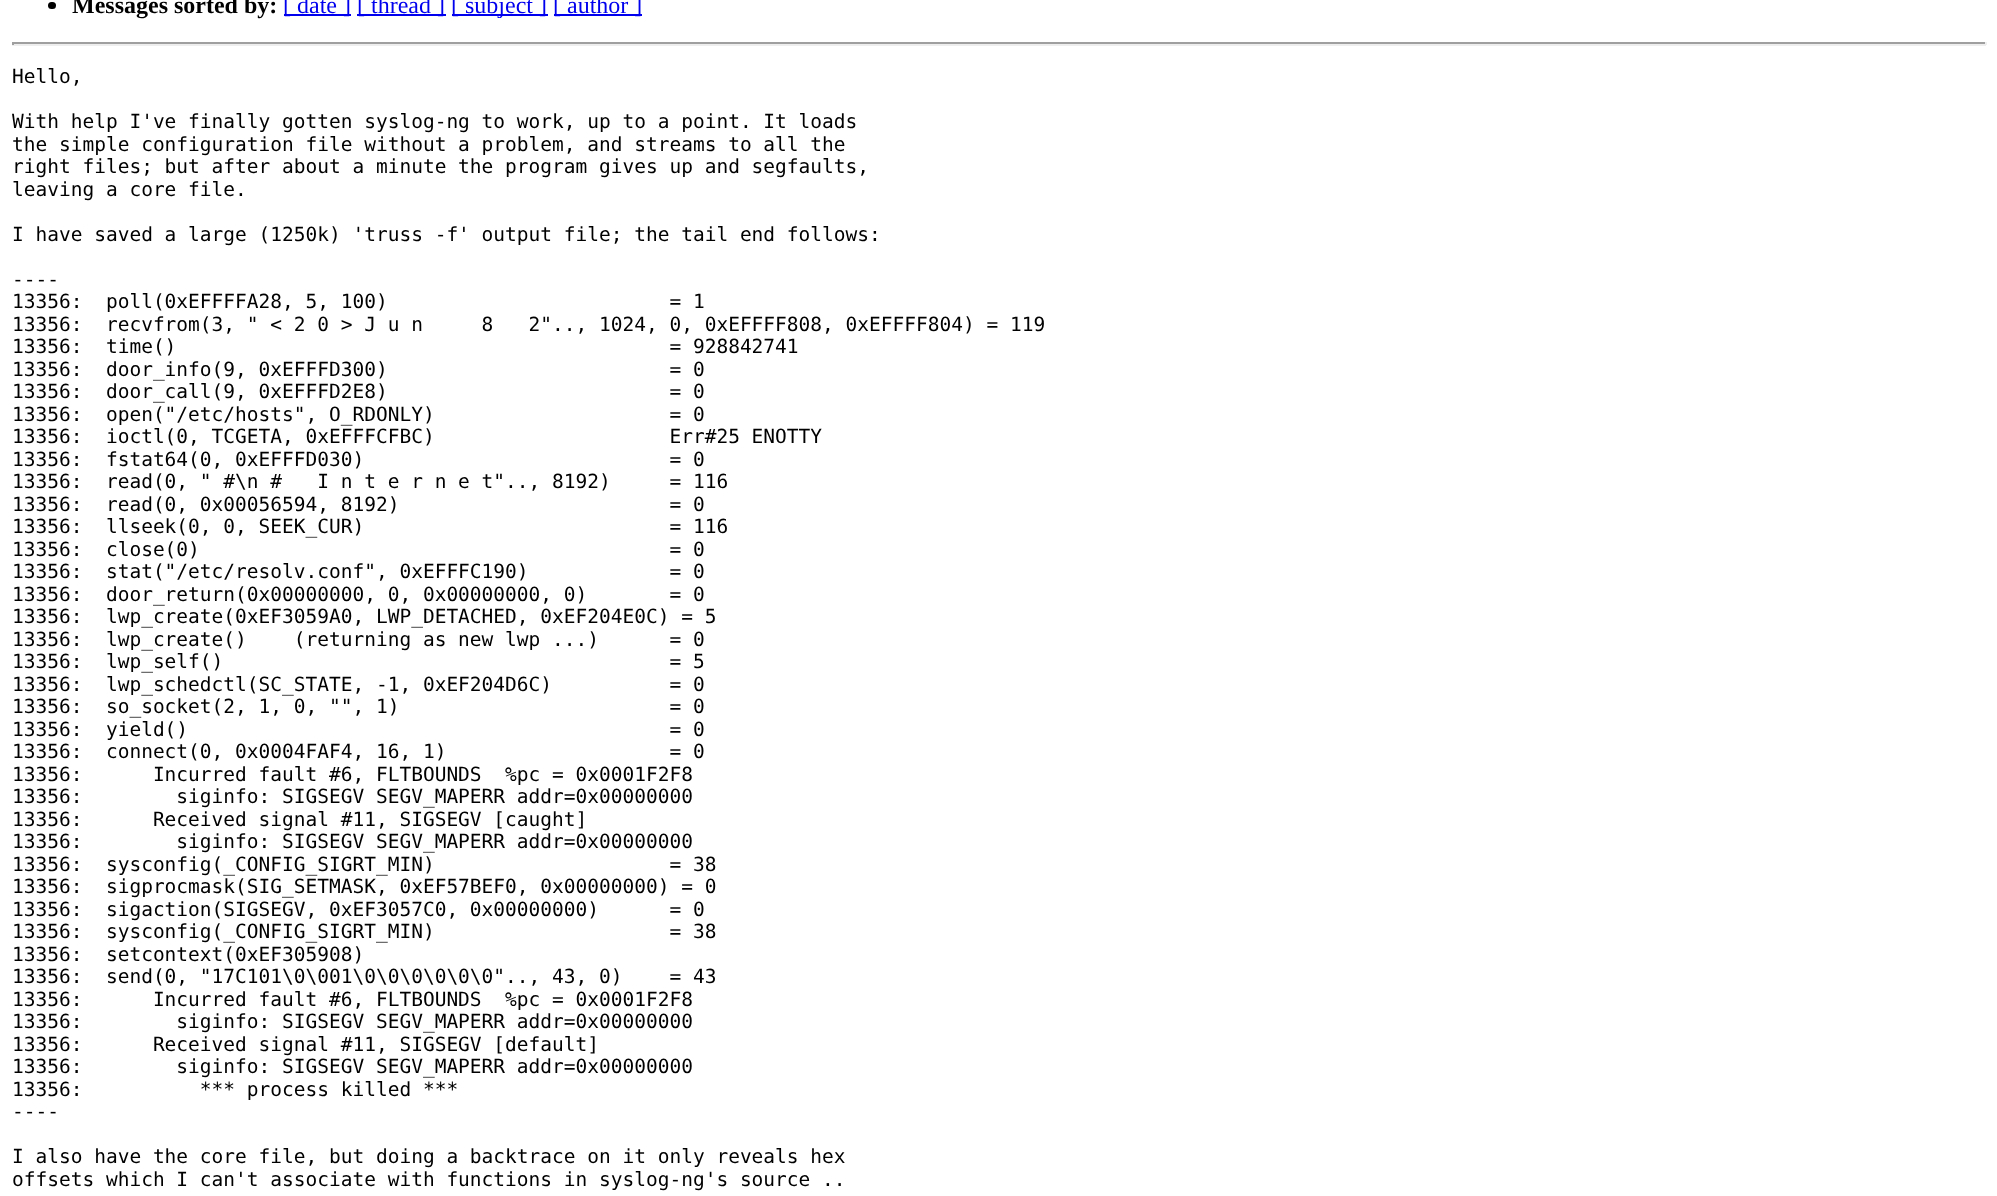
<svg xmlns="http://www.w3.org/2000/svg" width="1997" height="1196">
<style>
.a{font:bold 24px Liberation Serif;fill:#000}
.b{font:24px Liberation Serif;fill:#00e}
.c{font:19.5px DejaVu Sans Mono;fill:#000}
</style>
<rect width="100%" height="100%" fill="#fff"/>
<rect fill="#000" x="48" y="2" width="8" height="7" rx="3.5"/>
<path fill="#00e" d="M284 14h67v2H284z"/>
<path fill="#00e" d="M357 14h89v2H357z"/>
<path fill="#00e" d="M452 14h96v2H452z"/>
<path fill="#00e" d="M554 14h88v2H554z"/>
<path fill="#9f9f9f" d="M12 42h1974v2H12z"/>
<path fill="#eee" d="M1985 42h2v3H1985z"/>
<path fill="#eee" d="M12 44h1974v2H12z"/>
<path fill="#9f9f9f" d="M12 42h2v3H12z"/>
<text class="a" x="72" y="13">Messages sorted by:</text>
<text class="b" x="283" y="13">[ date ]</text>
<text class="b" x="357" y="13">[ thread ]</text>
<text class="b" x="451" y="13">[ subject ]</text>
<text class="b" x="553" y="13">[ author ]</text>
<text class="c" x="12" y="83">Hello,</text>
<text class="c" x="12" y="128">With help I've finally gotten syslog-ng to work, up to a point. It loads</text>
<text class="c" x="12" y="151">the simple configuration file without a problem, and streams to all the</text>
<text class="c" x="12" y="173">right files; but after about a minute the program gives up and segfaults,</text>
<text class="c" x="12" y="196">leaving a core file.</text>
<text class="c" x="12" y="241">I have saved a large (1250k) 'truss -f' output file; the tail end follows:</text>
<text class="c" x="12" y="286">----</text>
<text class="c" xml:space="preserve" x="12" y="308">13356:  poll(0xEFFFFA28, 5, 100)                        = 1</text>
<text class="c" xml:space="preserve" x="12" y="331">13356:  recvfrom(3, " &lt; 2 0 &gt; J u n     8   2".., 1024, 0, 0xEFFFF808, 0xEFFFF804) = 119</text>
<text class="c" xml:space="preserve" x="12" y="353">13356:  time()                                          = 928842741</text>
<text class="c" xml:space="preserve" x="12" y="376">13356:  door_info(9, 0xEFFFD300)                        = 0</text>
<text class="c" xml:space="preserve" x="12" y="398">13356:  door_call(9, 0xEFFFD2E8)                        = 0</text>
<text class="c" xml:space="preserve" x="12" y="421">13356:  open("/etc/hosts", O_RDONLY)                    = 0</text>
<text class="c" xml:space="preserve" x="12" y="443">13356:  ioctl(0, TCGETA, 0xEFFFCFBC)                    Err#25 ENOTTY</text>
<text class="c" xml:space="preserve" x="12" y="466">13356:  fstat64(0, 0xEFFFD030)                          = 0</text>
<text class="c" xml:space="preserve" x="12" y="488">13356:  read(0, " #\n #   I n t e r n e t".., 8192)     = 116</text>
<text class="c" xml:space="preserve" x="12" y="511">13356:  read(0, 0x00056594, 8192)                       = 0</text>
<text class="c" xml:space="preserve" x="12" y="533">13356:  llseek(0, 0, SEEK_CUR)                          = 116</text>
<text class="c" xml:space="preserve" x="12" y="556">13356:  close(0)                                        = 0</text>
<text class="c" xml:space="preserve" x="12" y="578">13356:  stat("/etc/resolv.conf", 0xEFFFC190)            = 0</text>
<text class="c" xml:space="preserve" x="12" y="601">13356:  door_return(0x00000000, 0, 0x00000000, 0)       = 0</text>
<text class="c" xml:space="preserve" x="12" y="623">13356:  lwp_create(0xEF3059A0, LWP_DETACHED, 0xEF204E0C) = 5</text>
<text class="c" xml:space="preserve" x="12" y="646">13356:  lwp_create()    (returning as new lwp ...)      = 0</text>
<text class="c" xml:space="preserve" x="12" y="668">13356:  lwp_self()                                      = 5</text>
<text class="c" xml:space="preserve" x="12" y="691">13356:  lwp_schedctl(SC_STATE, -1, 0xEF204D6C)          = 0</text>
<text class="c" xml:space="preserve" x="12" y="713">13356:  so_socket(2, 1, 0, "", 1)                       = 0</text>
<text class="c" xml:space="preserve" x="12" y="736">13356:  yield()                                         = 0</text>
<text class="c" xml:space="preserve" x="12" y="758">13356:  connect(0, 0x0004FAF4, 16, 1)                   = 0</text>
<text class="c" xml:space="preserve" x="12" y="781">13356:      Incurred fault #6, FLTBOUNDS  %pc = 0x0001F2F8</text>
<text class="c" xml:space="preserve" x="12" y="803">13356:        siginfo: SIGSEGV SEGV_MAPERR addr=0x00000000</text>
<text class="c" xml:space="preserve" x="12" y="826">13356:      Received signal #11, SIGSEGV [caught]</text>
<text class="c" xml:space="preserve" x="12" y="848">13356:        siginfo: SIGSEGV SEGV_MAPERR addr=0x00000000</text>
<text class="c" xml:space="preserve" x="12" y="871">13356:  sysconfig(_CONFIG_SIGRT_MIN)                    = 38</text>
<text class="c" xml:space="preserve" x="12" y="893">13356:  sigprocmask(SIG_SETMASK, 0xEF57BEF0, 0x00000000) = 0</text>
<text class="c" xml:space="preserve" x="12" y="916">13356:  sigaction(SIGSEGV, 0xEF3057C0, 0x00000000)      = 0</text>
<text class="c" xml:space="preserve" x="12" y="938">13356:  sysconfig(_CONFIG_SIGRT_MIN)                    = 38</text>
<text class="c" xml:space="preserve" x="12" y="961">13356:  setcontext(0xEF305908)</text>
<text class="c" xml:space="preserve" x="12" y="983">13356:  send(0, "17C101\0\001\0\0\0\0\0\0".., 43, 0)    = 43</text>
<text class="c" xml:space="preserve" x="12" y="1006">13356:      Incurred fault #6, FLTBOUNDS  %pc = 0x0001F2F8</text>
<text class="c" xml:space="preserve" x="12" y="1028">13356:        siginfo: SIGSEGV SEGV_MAPERR addr=0x00000000</text>
<text class="c" xml:space="preserve" x="12" y="1051">13356:      Received signal #11, SIGSEGV [default]</text>
<text class="c" xml:space="preserve" x="12" y="1073">13356:        siginfo: SIGSEGV SEGV_MAPERR addr=0x00000000</text>
<text class="c" xml:space="preserve" x="12" y="1096">13356:          *** process killed ***</text>
<text class="c" x="12" y="1118">----</text>
<text class="c" x="12" y="1163">I also have the core file, but doing a backtrace on it only reveals hex</text>
<text class="c" x="12" y="1186">offsets which I can't associate with functions in syslog-ng's source ..</text>
</svg>
